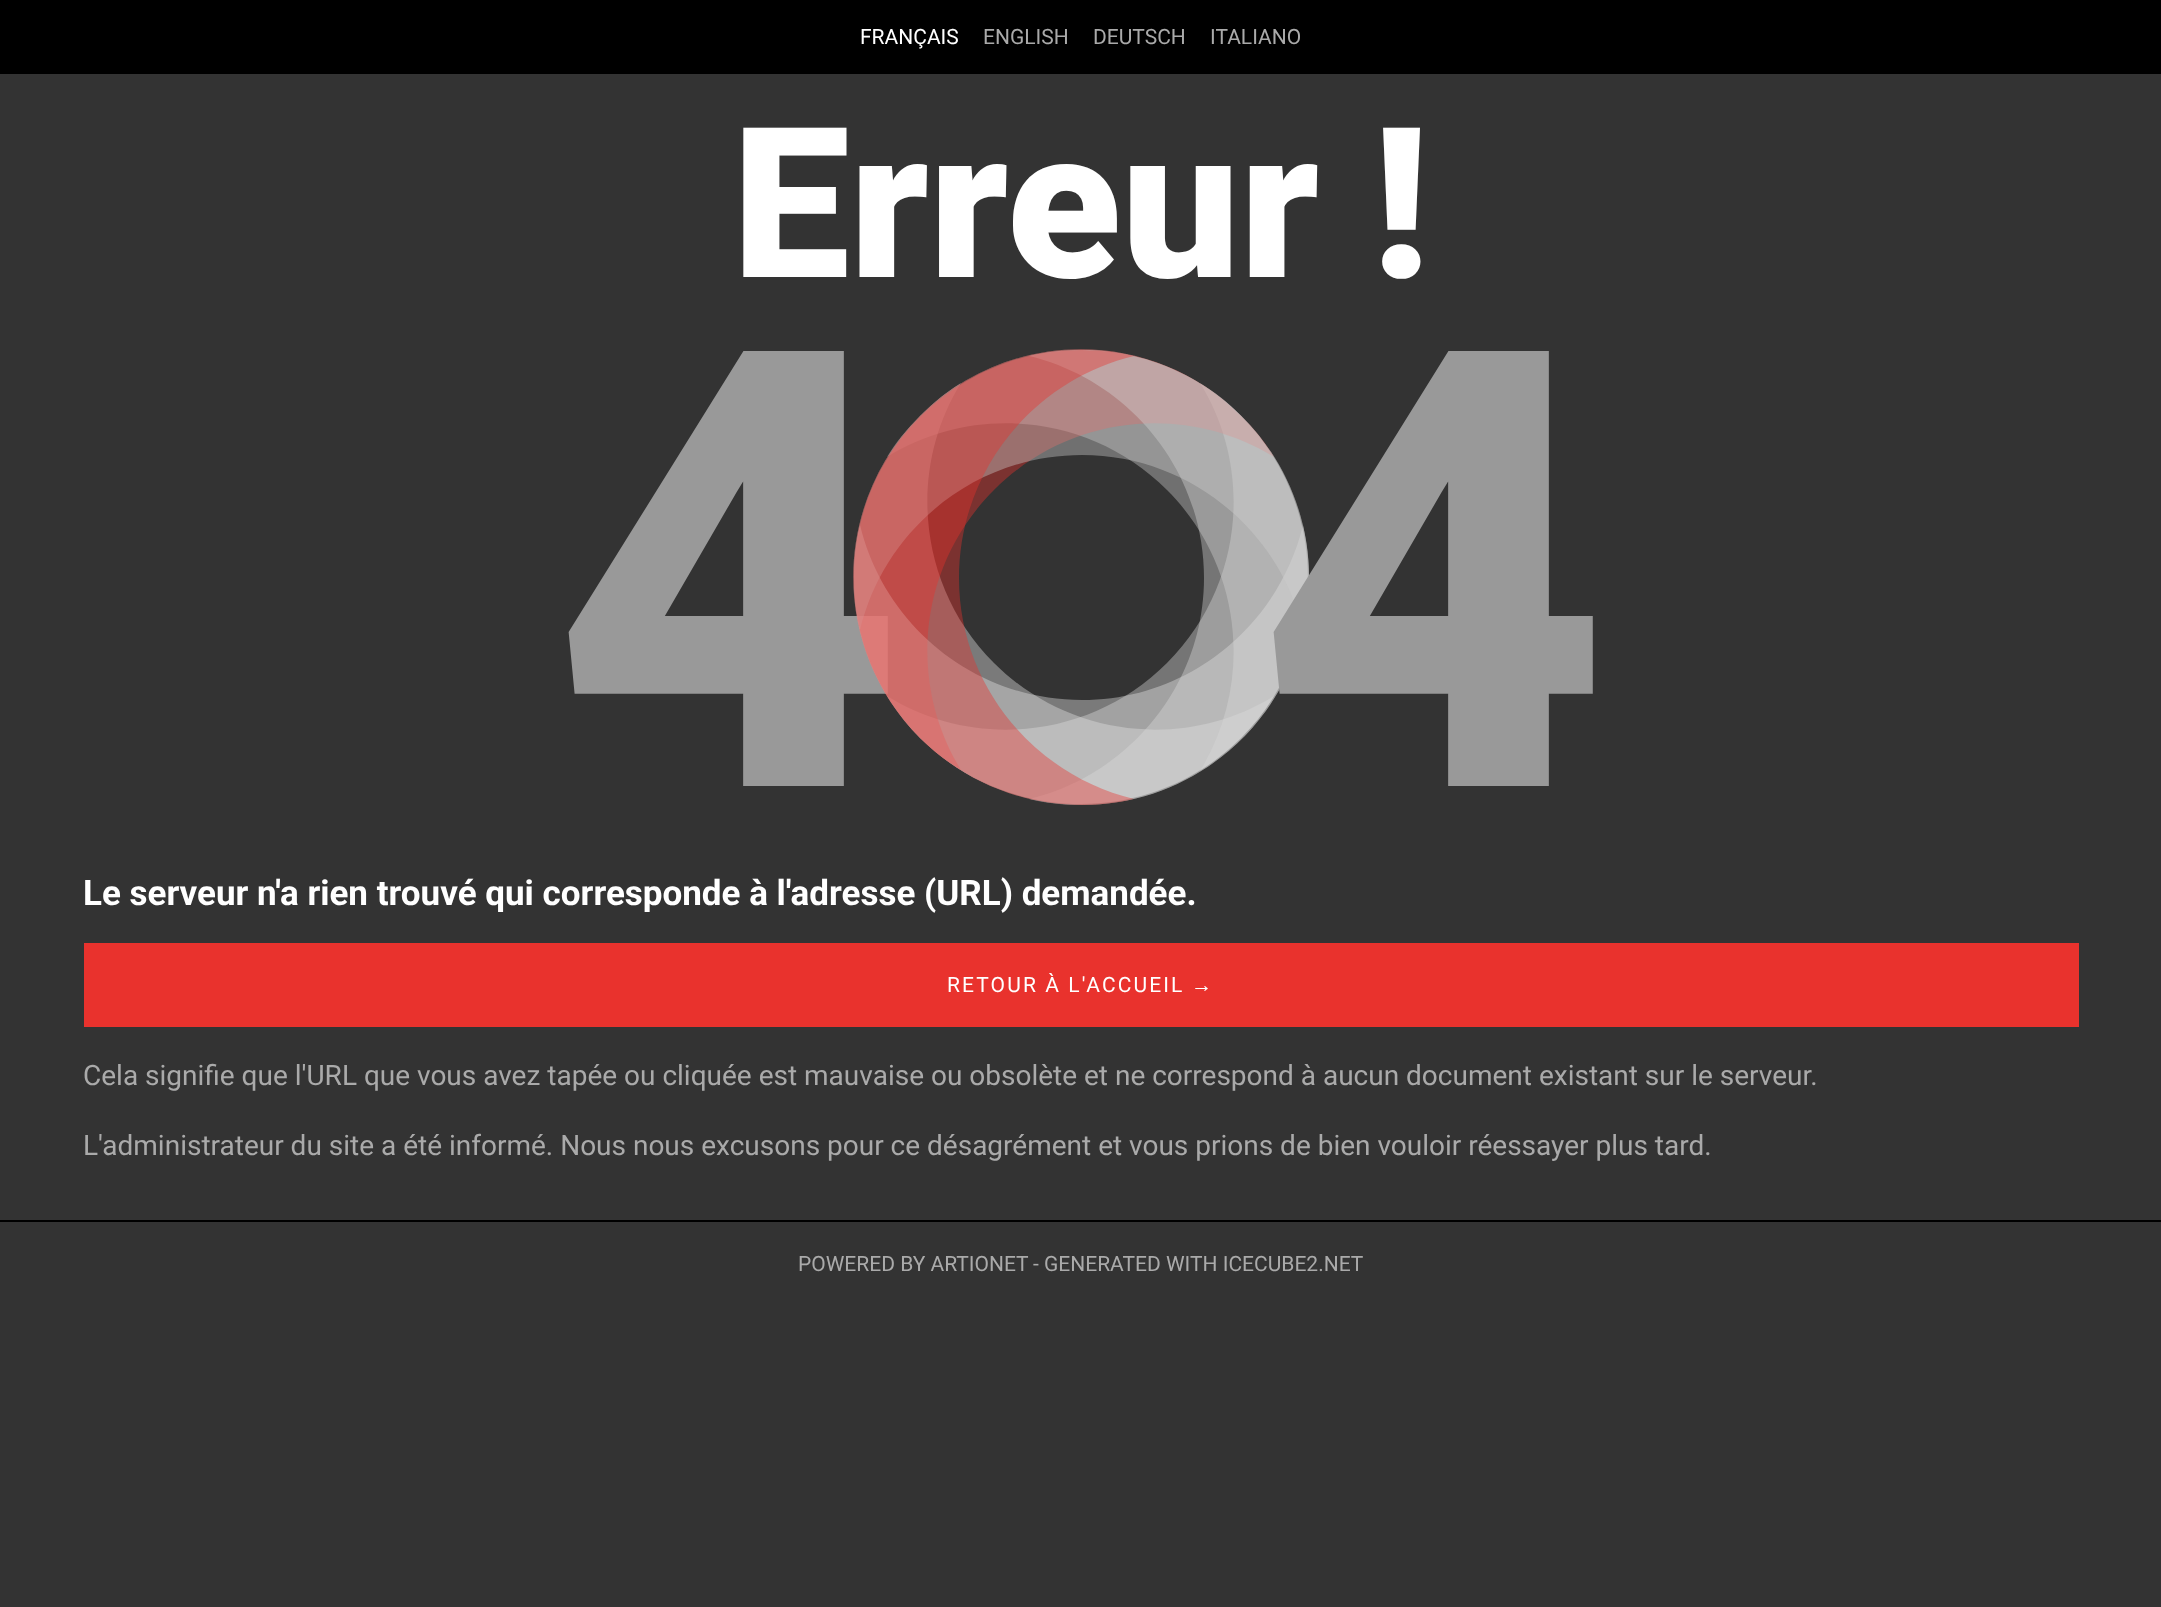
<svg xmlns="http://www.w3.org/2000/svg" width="2161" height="1607">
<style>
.a{font:21px Roboto;fill:#fff}
.b{font:21px Roboto;fill:#aaa}
.c{font:900 210px Roboto;fill:#fff}
.d{font:900 612px Roboto;fill:#999}
.e{font:bold 35px Roboto;fill:#fff}
.f{font:21px Roboto;letter-spacing:2.1px;fill:#fff}
.g{font:21px Liberation Sans;letter-spacing:2.1px;fill:#fff}
.h{font:28px Roboto;fill:#aaa}
</style>
<rect width="100%" height="100%" fill="#333"/>
<path fill="#000" d="M0 0h2161v74H0z"/>
<path fill="#e9322d" d="M84 943h1995v84H84z"/>
<path fill="#000" d="M0 1220h2161v2H0z"/>
<text class="a" x="860" y="44">FRANÇAIS</text>
<text class="b" x="983" y="44">ENGLISH</text>
<text class="b" x="1093" y="44">DEUTSCH</text>
<text class="b" x="1210" y="44">ITALIANO</text>
<text class="c" x="732" y="277">Erreur !</text>
<text class="d" x="551" y="786">4</text>
<path fill="#e5e5e566" d="M961 383c-15 9-28 20-41 33c-89 89-89 233 0 322c89 88 233 88 321 0c13-13 24-27 33-42c-87 54-204 43-280-33c-76-76-87-193-33-280z"/>
<path fill="#d9d9d966" d="M1241 416c-12-13-26-24-41-33c54 87 43 204-33 280c-76 76-193 87-280 33c9 14 20 29 33 42c89 88 233 88 321 0c89-89 89-233 0-322z"/>
<path fill="#cccccc66" d="M1167 490c76 76 87 193 33 281c15-10 29-21 41-33c89-89 89-233 0-322c-88-89-232-89-321 0c-13 13-24 26-33 41c87-54 204-43 280 33z"/>
<path fill="#e9322d66" d="M1241 416c-88-89-232-89-321 0c-89 89-89 233 0 322c12 12 26 23 41 32c-54-88-43-204 33-280c76-76 192-87 280-33c-9-15-20-29-33-41z"/>
<path fill="#e5e5e566" d="M860 525c-4 17-6 34-6 53c0 125 102 227 228 227c125 0 227-102 227-227c0-19-2-36-6-53c-24 100-114 175-221 175c-108 0-198-75-222-175z"/>
<path fill="#d9d9d966" d="M1082 350c-19 0-36 2-53 6c100 24 175 114 175 222c0 107-75 197-175 221c17 4 34 6 53 6c125 0 227-102 227-227c0-126-102-228-227-228z"/>
<path fill="#cccccc66" d="M1082 455c107 0 197 75 221 175c4-17 6-34 6-52c0-126-102-228-227-228c-126 0-228 102-228 228c0 18 2 35 6 52c24-100 114-175 222-175z"/>
<path fill="#e9322d66" d="M1082 350c-126 0-228 102-228 228c0 125 102 227 228 227c18 0 35-2 52-6c-100-24-175-114-175-221c0-108 75-198 175-222c-17-4-34-6-52-6z"/>
<text class="d" x="1256" y="786">4</text>
<text class="e" x="83" y="905">Le serveur n'a rien trouvé qui corresponde à l'adresse (URL) demandée.</text>
<text class="f" x="947" y="992">RETOUR À L'ACCUEIL</text>
<text class="g" x="1191" y="992">→</text>
<text class="h" x="83" y="1085">Cela signifie que l'URL que vous avez tapée ou cliquée est mauvaise ou obsolète et ne correspond à aucun document existant sur le serveur.</text>
<text class="h" x="83" y="1155">L'administrateur du site a été informé. Nous nous excusons pour ce désagrément et vous prions de bien vouloir réessayer plus tard.</text>
<text class="b" x="798" y="1271">POWERED BY ARTIONET</text>
<text class="b" x="1033" y="1271">- GENERATED WITH ICECUBE2.NET</text>
</svg>
